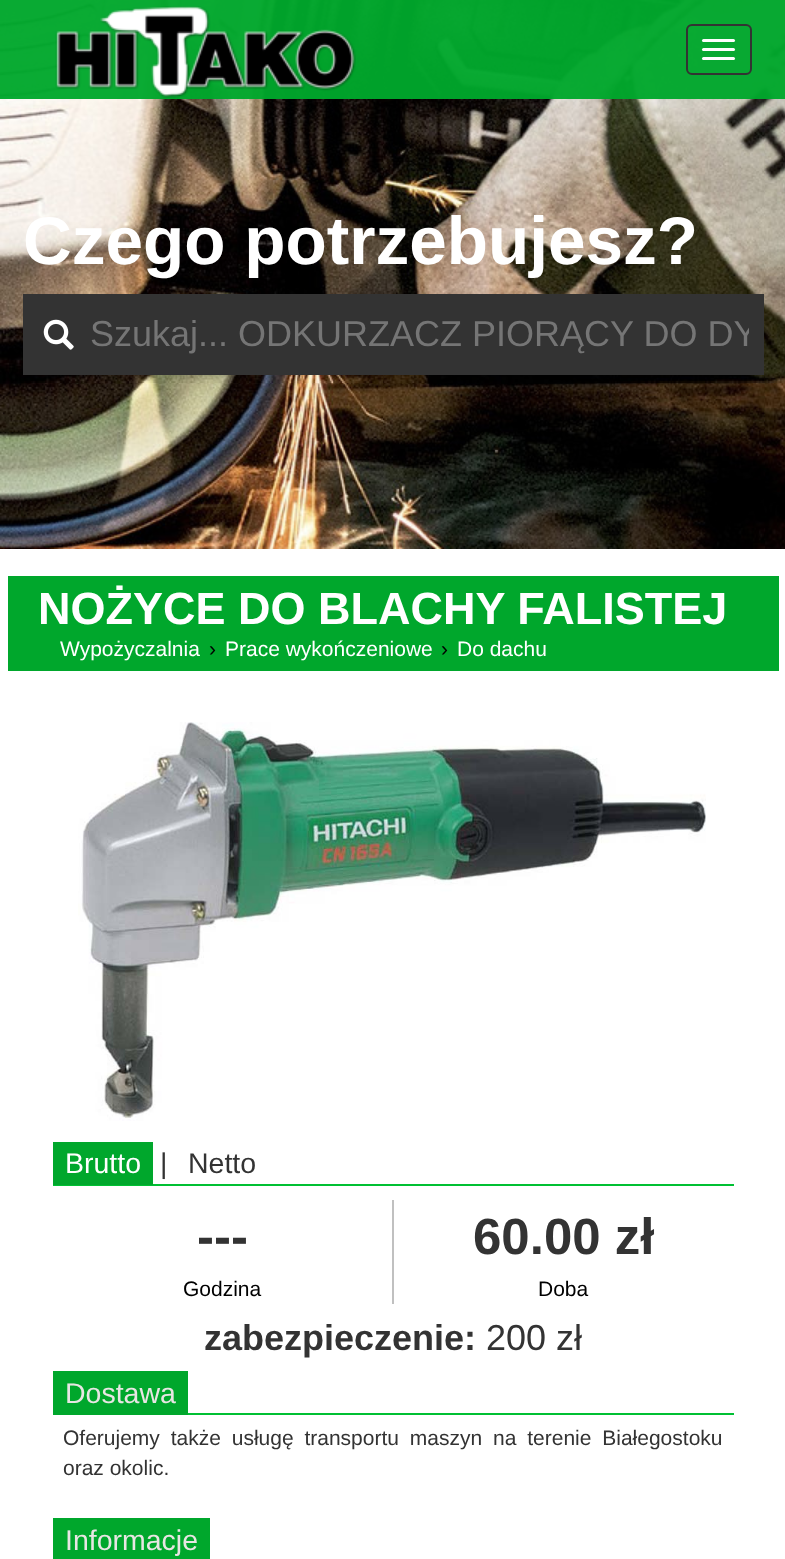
<svg xmlns="http://www.w3.org/2000/svg" width="785" height="1559">
<style>
.a{font:bold 67.5px Liberation Sans;fill:#fff}
.b{font:36px Liberation Sans;fill:#757575}
.c{font:bold 45px Liberation Sans;fill:#fff}
.d{font:21px Liberation Sans;fill:#fff}
.e{font:21px Liberation Sans;fill:#000}
.f{font:28.5px Liberation Sans;fill:#fff}
.g{font:28.5px Liberation Sans;fill:#333}
.h{font:bold 51px Liberation Sans;fill:#333}
.i{font:bold 36px Liberation Sans;fill:#333}
.j{font:36px Liberation Sans;fill:#333}
.k{font:28.5px Liberation Sans;fill:#e8e6e3}
.l{font:21px Liberation Sans;fill:#333}
</style>
<defs>
<clipPath id="clip1"><path d="M90 314h659v42H90z"/></clipPath>
</defs>
<rect width="100%" height="100%" fill="#fff"/>
<image href="2.png" x="0" y="0" width="785" height="549"/>
<path fill="#00a72ccc" d="M0 0h785v99H0z"/>
<path fill="#00a72ccc" d="M0 0h785v99H0z"/>
<image href="1.png" x="55" y="6" width="301" height="92"/>
<rect fill="none" stroke="#333" stroke-width="2" x="687" y="25" width="64" height="49" rx="5"/>
<rect fill="#fff" x="702" y="39" width="33" height="3" rx="1.5"/>
<rect fill="#fff" x="702" y="48" width="33" height="3" rx="1.5"/>
<rect fill="#fff" x="702" y="57" width="33" height="3" rx="1.5"/>
<path fill="#333" d="M23 294h741v81H23z"/>
<image href="3.png" x="43" y="319" width="31" height="31"/>
<path fill="#00a72c" d="M8 576h771v95H8z"/>
<image href="4.png" x="78" y="722" width="628" height="399"/>
<path fill="#00c033" d="M53 1184h681v2H53z"/>
<path fill="#00a72c" d="M53 1142h100v43H53z"/>
<path fill="#c0c0c0" d="M392 1200h2v104H392z"/>
<path fill="#00c033" d="M188 1413h546v2H188z"/>
<path fill="#00a72c" d="M53 1371h135v44H53z"/>
<path fill="#00a72c" d="M53 1518h157v41H53z"/>
<text class="a" x="23" y="264">Czego potrzebujesz?</text>
<g clip-path="url(#clip1)">
<text class="b" x="90" y="346">Szukaj... ODKURZACZ PIORĄCY DO DY</text>
</g>
<text class="c" x="38" y="624">NOŻYCE DO BLACHY FALISTEJ</text>
<text class="d" x="60" y="656">Wypożyczalnia</text>
<text class="e" x="209" y="656">›</text>
<text class="d" x="225" y="656">Prace wykończeniowe</text>
<text class="e" x="441" y="656">›</text>
<text class="d" x="457" y="656">Do dachu</text>
<text class="f" x="65" y="1173">Brutto</text>
<text class="g" x="160" y="1173">|</text>
<text class="g" x="188" y="1173">Netto</text>
<text class="h" x="197" y="1254">---</text>
<text class="e" x="183" y="1296">Godzina</text>
<text class="h" x="473" y="1254">60.00 zł</text>
<text class="e" x="538" y="1296">Doba</text>
<text class="i" x="204" y="1350">zabezpieczenie:</text>
<text class="j" x="486" y="1350">200 zł</text>
<text class="k" x="65" y="1403">Dostawa</text>
<text class="l" x="63" y="1445" word-spacing="5">Oferujemy także usługę transportu maszyn na terenie Białegostoku</text>
<text class="l" x="63" y="1475">oraz okolic.</text>
<text class="k" x="65" y="1550">Informacje</text>
</svg>
